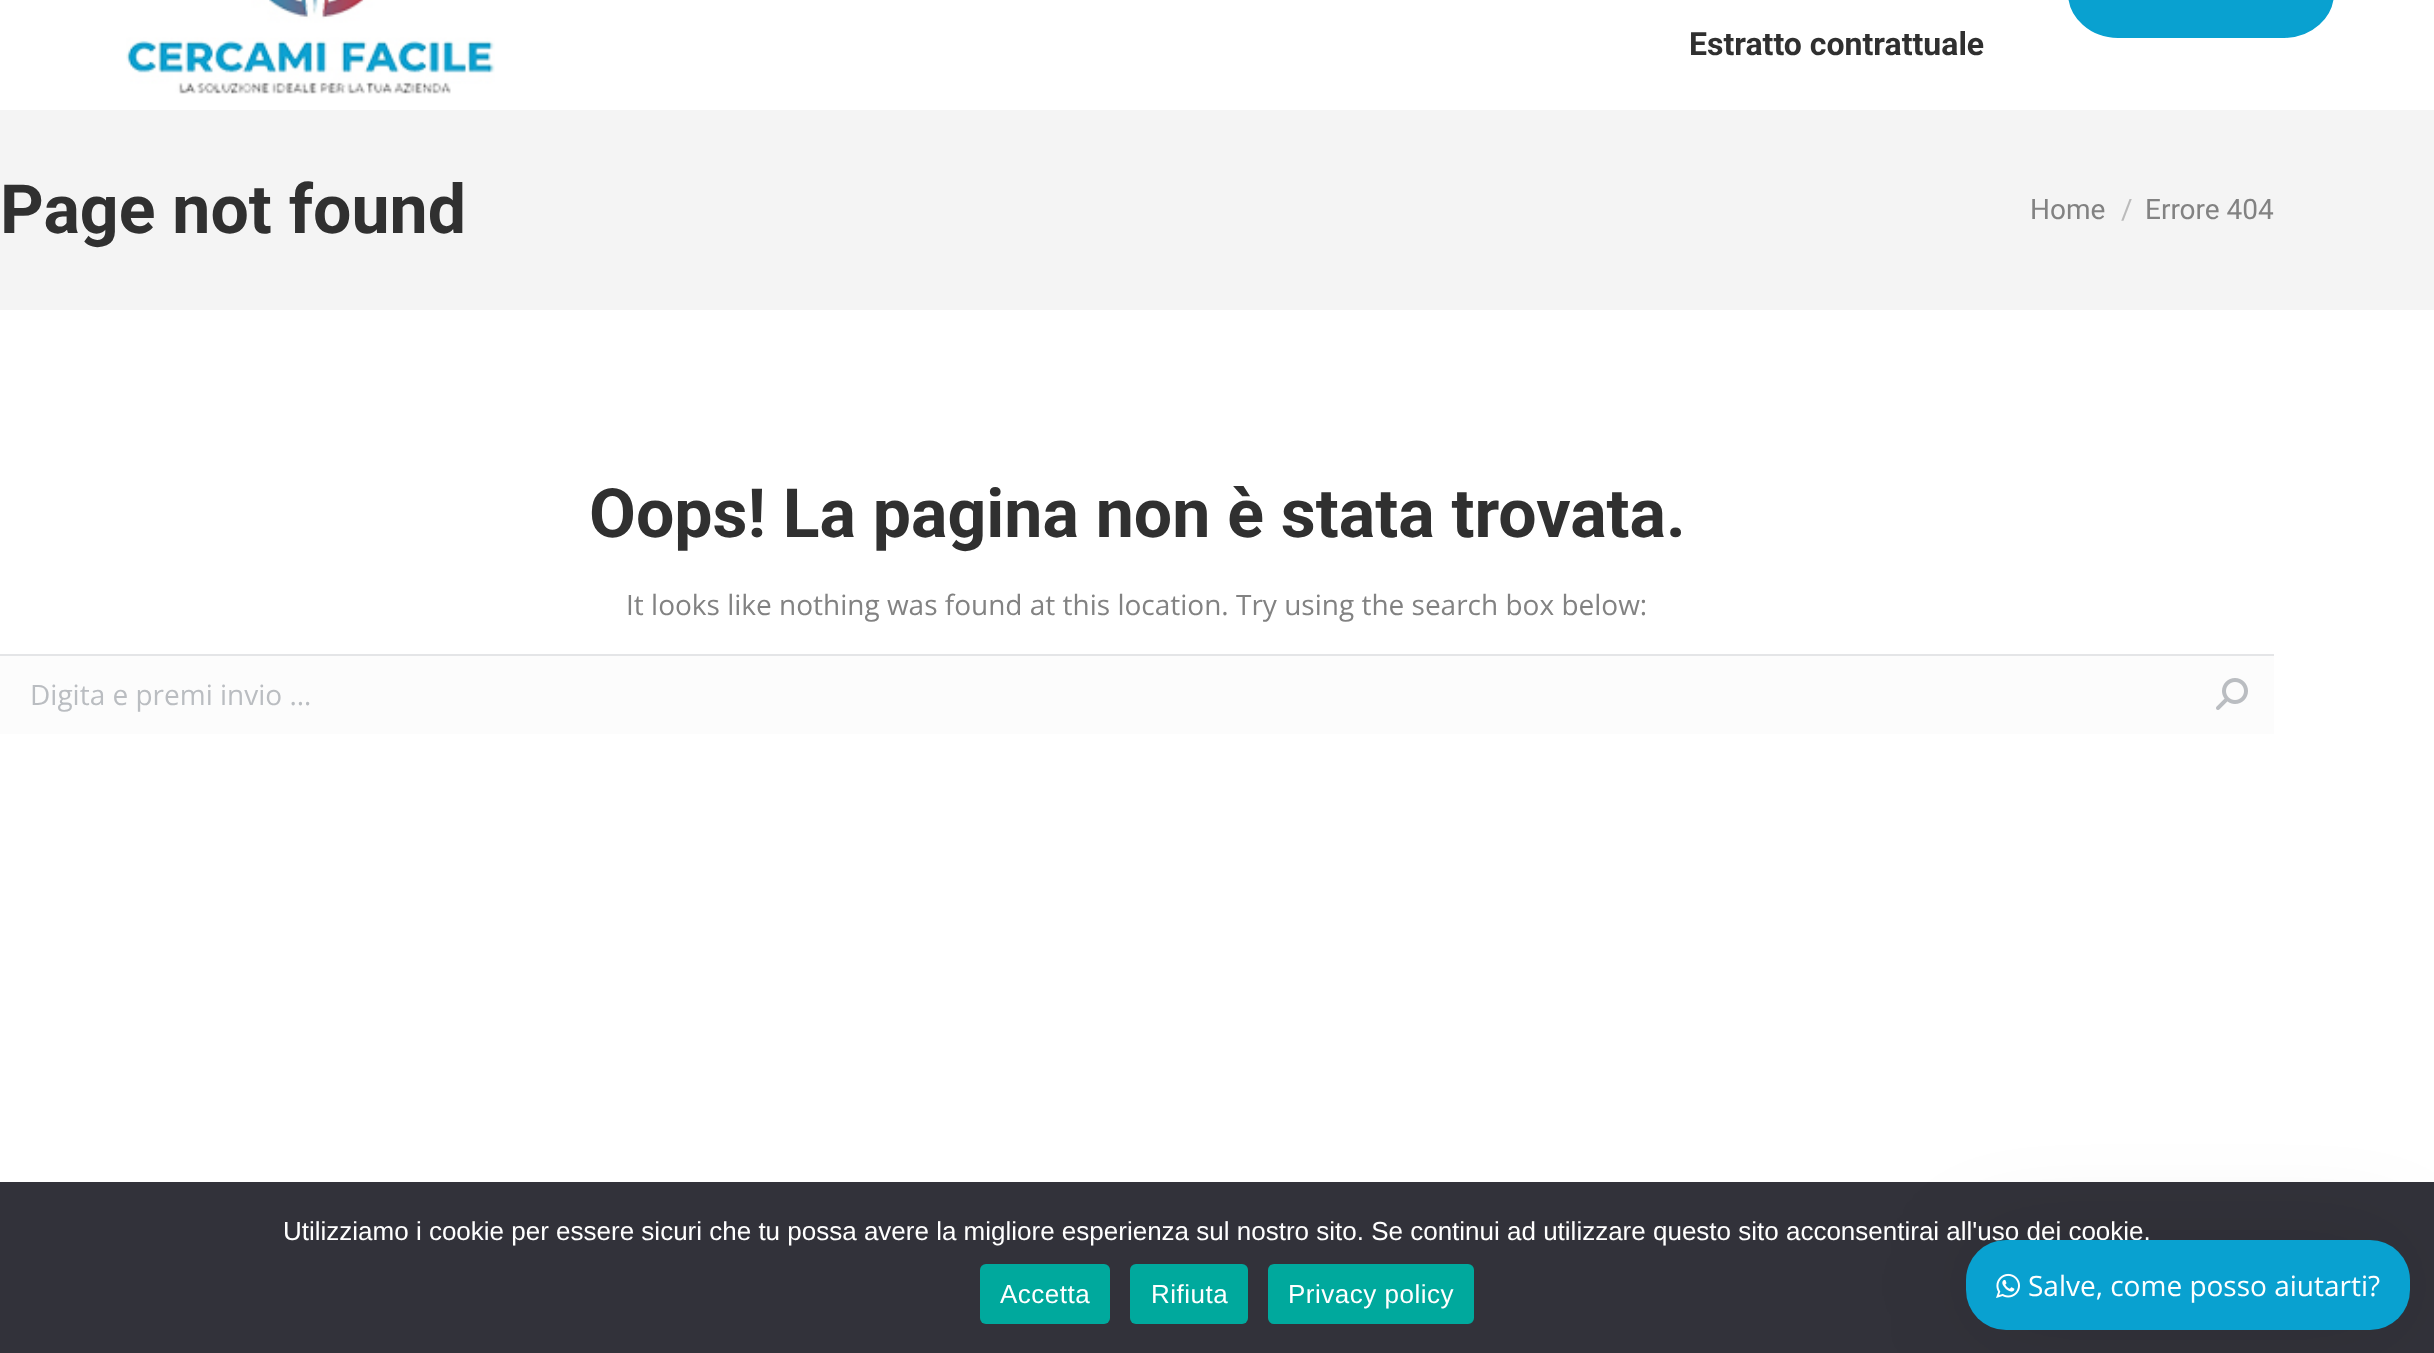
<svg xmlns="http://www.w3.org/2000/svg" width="2434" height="1353">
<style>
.a{font:bold 32px Roboto;fill:#303030}
.b{font:bold 68px Roboto;fill:#303030}
.c{font:28px Roboto;fill:#828282}
.d{font:28px Roboto;fill:#bbb}
.e{font:28px Open Sans;fill:#828282}
.f{font:28px Open Sans;fill:#babdc1}
.g{font:26px Liberation Sans;fill:#fff}
.h{font:26px Liberation Sans;letter-spacing:0.5px;fill:#fff}
.i{font:28px Open Sans;fill:#fff}
</style>
<rect width="100%" height="100%" fill="#fff"/>
<image href="1.png" x="126" y="0" width="369" height="94"/>
<rect fill="#09a1d0" stroke="#09a1d0" stroke-width="2" x="2069" y="-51" width="264" height="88" rx="49"/>
<path fill="#f4f4f4" d="M0 110h2434v200H0z"/>
<path fill="#fcfcfc" d="M0 656h2274v78H0z"/>
<path fill="#e4e5e7" d="M0 654h2274v2H0z"/>
<image href="2.png" x="2216" y="678" width="32" height="32"/>
<path fill="#32323a" d="M0 1182h2434v171H0z"/>
<rect fill="#00a99d" x="980" y="1264" width="130" height="60" rx="6"/>
<rect fill="#00a99d" x="1130" y="1264" width="118" height="60" rx="6"/>
<rect fill="#00a99d" x="1268" y="1264" width="206" height="60" rx="6"/>
<rect fill="#0000001a" filter="blur(50px)" x="1966" y="1240" width="444" height="90" rx="40"/>
<text class="a" x="1689" y="55">Estratto contrattuale</text>
<text class="b" x="0" y="233">Page not found</text>
<text class="c" x="2030" y="219">Home</text>
<text class="d" x="2121" y="219">/</text>
<text class="c" x="2145" y="219">Errore 404</text>
<text class="b" x="589" y="537">Oops! La pagina non è stata trovata.</text>
<text class="e" x="626" y="615">It looks like nothing was found at this location. Try using the search box below:</text>
<text class="f" x="30" y="705">Digita e premi invio …</text>
<text class="g" x="283" y="1240">Utilizziamo i cookie per essere sicuri che tu possa avere la migliore esperienza sul nostro sito. Se continui ad utilizzare questo sito acconsentirai all'uso dei cookie.</text>
<text class="h" x="1000" y="1303">Accetta</text>
<text class="h" x="1151" y="1303">Rifiuta</text>
<text class="h" x="1288" y="1303">Privacy policy</text>
<rect fill="#09a1d0" x="1966" y="1240" width="444" height="90" rx="40"/>
<image href="3.png" x="1996" y="1273" width="24" height="25"/>
<text class="i" x="2028" y="1296">Salve, come posso aiutarti?</text>
</svg>
